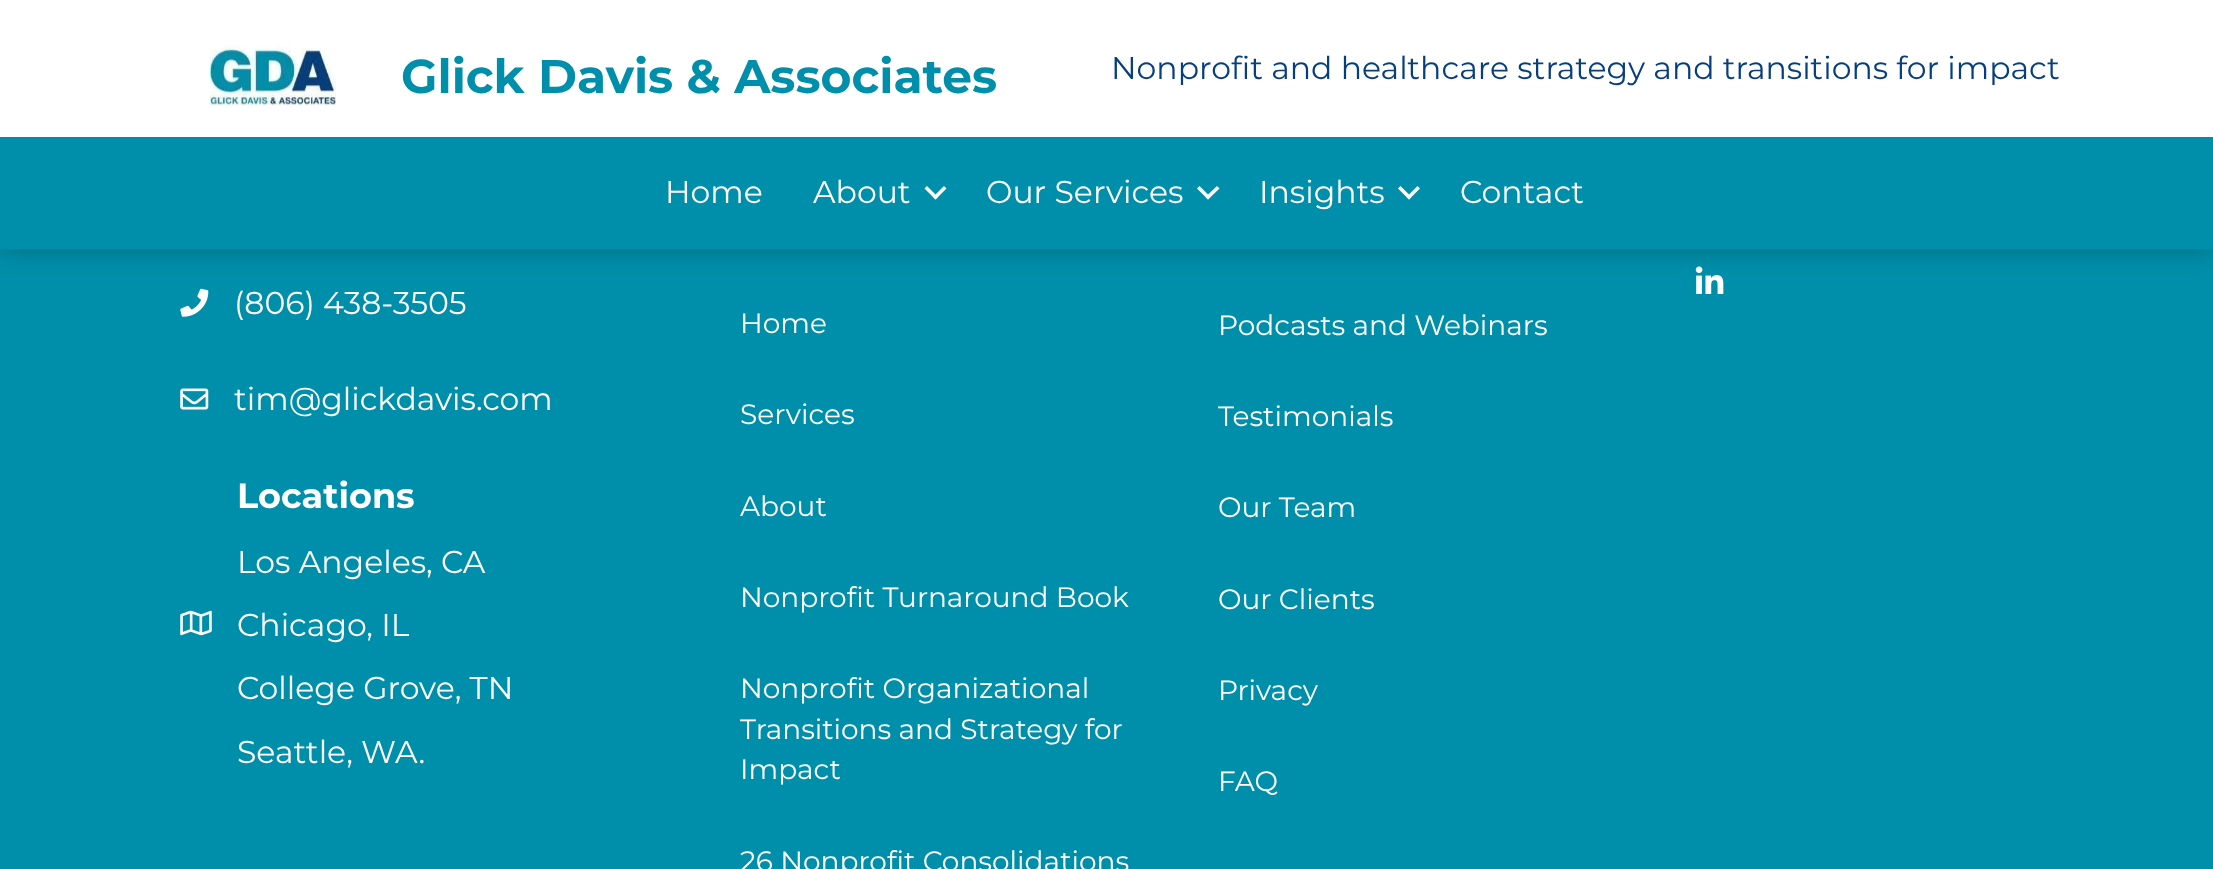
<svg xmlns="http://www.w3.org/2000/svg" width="2213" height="869">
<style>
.a{font:bold 47.25px Montserrat;fill:#008faa}
.b{font:31.5px Montserrat;fill:#073e7e}
.c{font:31.5px Montserrat;fill:#fff}
.d{font:bold 35px Montserrat;fill:#fff}
.e{font:28px Montserrat;fill:#fff}
</style>
<rect width="100%" height="100%" fill="#008faa"/>
<image href="2.png" x="1695" y="266" width="29" height="28"/>
<image href="3.png" x="180" y="288" width="29" height="29"/>
<path fill="#0000001f" filter="blur(13px)" d="M0 2h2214v247H0z"/>
<path fill="#0000001f" filter="blur(13px)" d="M0 138h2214v112H0z"/>
<path fill="#fff" d="M0 0h2213v137H0z"/>
<image href="1.png" x="210" y="45" width="126" height="63"/>
<path fill="#008faa" d="M0 137h2213v112H0z"/>
<path fill="#fff" d="M944 186l2.5 2.5l-11 11l-2.5-2.5z"/>
<path fill="#fff" d="M927 186l11 11l-2.5 2.5l-11-11z"/>
<path fill="#fff" d="M1217 186l2.5 2.5l-11.5 11l-2.5-2.5z"/>
<path fill="#fff" d="M1199.5 186l11 11l-2.5 2.5l-11-11z"/>
<path fill="#fff" d="M1417.5 186l2.5 2.5l-11 11l-2.5-2.5z"/>
<path fill="#fff" d="M1400.5 186l11 11l-2.5 2.5l-11-11z"/>
<image href="4.png" x="180" y="388" width="29" height="22"/>
<image href="5.png" x="180" y="610" width="32" height="26"/>
<text class="a" x="401" y="93">Glick Davis &amp; Associates</text>
<text class="b" x="1111" y="79">Nonprofit and healthcare strategy and transitions for impact</text>
<text class="c" x="665" y="203">Home</text>
<text class="c" x="813" y="203">About</text>
<text class="c" x="986" y="203">Our Services</text>
<text class="c" x="1259" y="203">Insights</text>
<text class="c" x="1460" y="203">Contact</text>
<text class="c" x="234" y="314">(806) 438-3505</text>
<text class="c" x="234" y="410">tim@glickdavis.com</text>
<text class="d" x="237" y="508">Locations</text>
<text class="c" x="237" y="573">Los Angeles, CA</text>
<text class="c" x="237" y="636">Chicago, IL</text>
<text class="c" x="237" y="699">College Grove, TN</text>
<text class="c" x="237" y="763">Seattle, WA.</text>
<text class="e" x="740" y="333">Home</text>
<text class="e" x="1218" y="335">Podcasts and Webinars</text>
<text class="e" x="740" y="424">Services</text>
<text class="e" x="1218" y="426">Testimonials</text>
<text class="e" x="740" y="516">About</text>
<text class="e" x="1218" y="517">Our Team</text>
<text class="e" x="740" y="607">Nonprofit Turnaround Book</text>
<text class="e" x="1218" y="609">Our Clients</text>
<text class="e" x="740" y="698">Nonprofit Organizational</text>
<text class="e" x="740" y="739">Transitions and Strategy for</text>
<text class="e" x="740" y="779">Impact</text>
<text class="e" x="1218" y="700">Privacy</text>
<text class="e" x="1218" y="791">FAQ</text>
<text class="e" x="740" y="871">26 Nonprofit Consolidations</text>
</svg>
